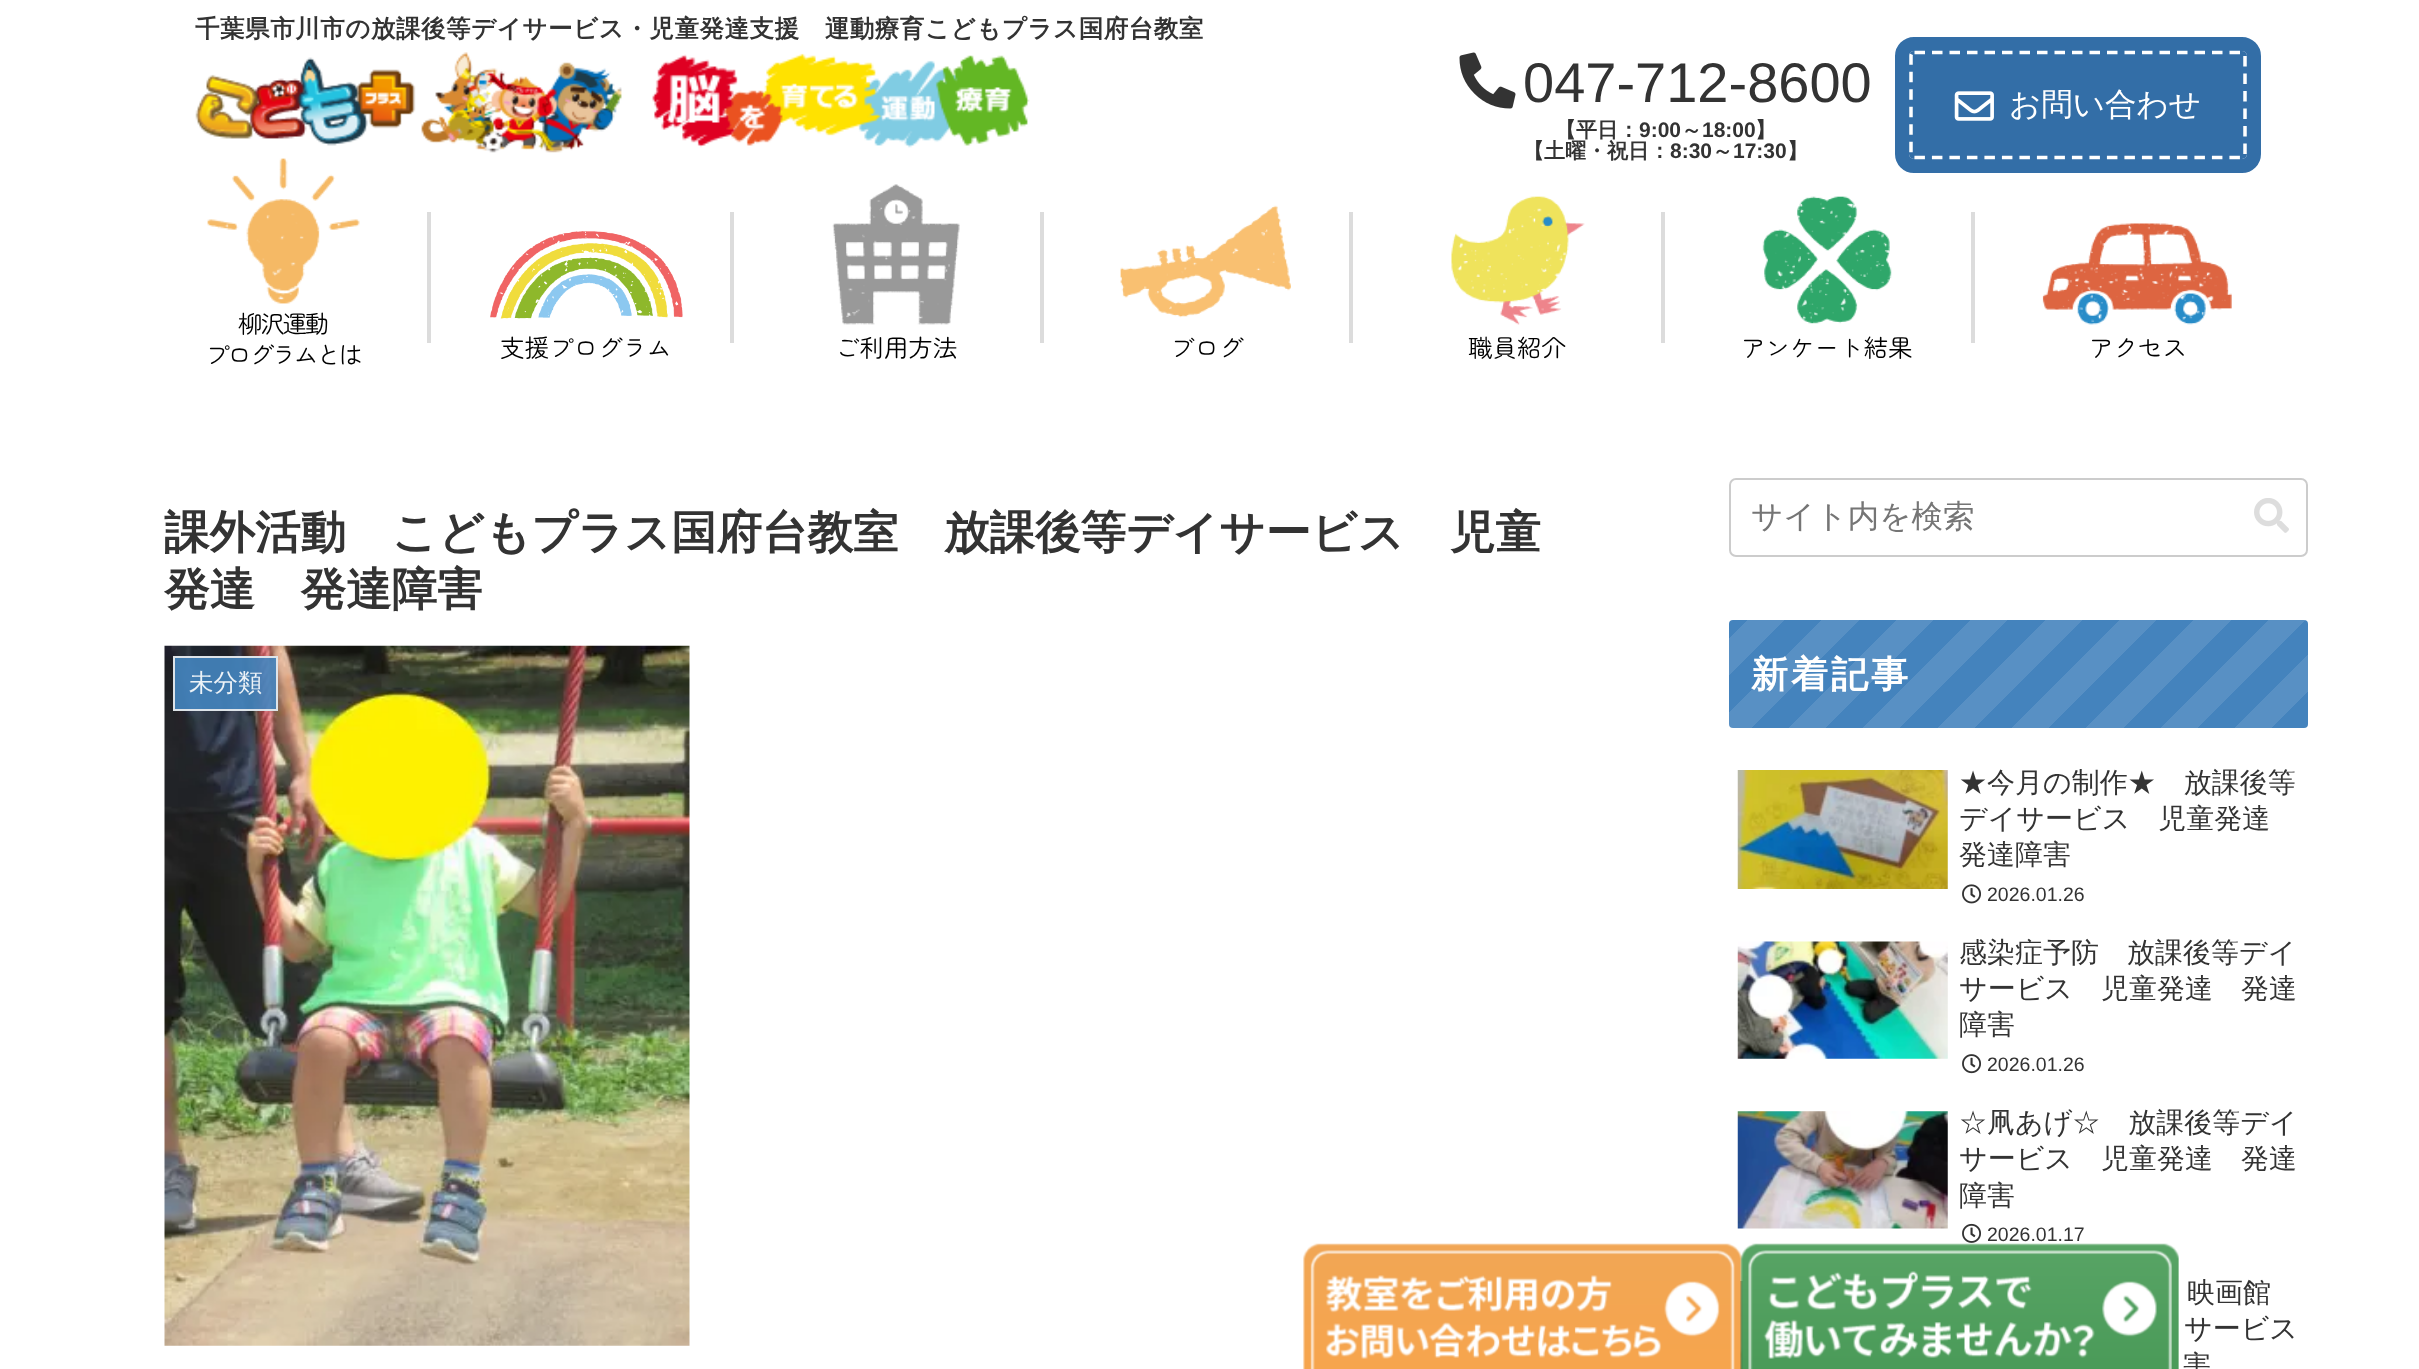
<svg xmlns="http://www.w3.org/2000/svg" width="2419" height="1369">
<style>
.a{font:bold 24.5px WenQuanYi Zen Hei;letter-spacing:0.55px;fill:#333}
.b{font:56px Liberation Sans;fill:#333}
.c{font:bold 21px WenQuanYi Zen Hei;fill:#333}
.d{font:bold 21px Liberation Sans;fill:#333}
.e{font:500 31.5px WenQuanYi Zen Hei;fill:#fff}
.f{font:24.5px Zen Maru Gothic;letter-spacing:-2.25px;fill:#000}
.g{font:24.5px Zen Maru Gothic;fill:#000}
.h{font:bold 45.5px WenQuanYi Zen Hei;fill:#333}
.i{font:500 24.5px WenQuanYi Zen Hei;fill:#ecf2f7}
.j{font:500 31.5px WenQuanYi Zen Hei;fill:#757575}
.k{font:bold 37px WenQuanYi Zen Hei;letter-spacing:3px;fill:#fff}
.l{font:500 28px WenQuanYi Zen Hei;fill:#333}
.m{font:19.5px Liberation Sans;fill:#333}
</style>
<defs>
<linearGradient id="g1" gradientUnits="userSpaceOnUse" x1="2191" y1="846" x2="1819" y2="474"><stop offset="0" stop-color="#4483bd"/><stop offset="0.05" stop-color="#4483bd"/><stop offset="0.05" stop-color="#5890c4"/><stop offset="0.1" stop-color="#5890c4"/><stop offset="0.1" stop-color="#4483bd"/><stop offset="0.15" stop-color="#4483bd"/><stop offset="0.15" stop-color="#5890c4"/><stop offset="0.2" stop-color="#5890c4"/><stop offset="0.2" stop-color="#4483bd"/><stop offset="0.25" stop-color="#4483bd"/><stop offset="0.25" stop-color="#5890c4"/><stop offset="0.3" stop-color="#5890c4"/><stop offset="0.3" stop-color="#4483bd"/><stop offset="0.35" stop-color="#4483bd"/><stop offset="0.35" stop-color="#5890c4"/><stop offset="0.4" stop-color="#5890c4"/><stop offset="0.4" stop-color="#4483bd"/><stop offset="0.45" stop-color="#4483bd"/><stop offset="0.45" stop-color="#5890c4"/><stop offset="0.5" stop-color="#5890c4"/><stop offset="0.5" stop-color="#4483bd"/><stop offset="0.55" stop-color="#4483bd"/><stop offset="0.55" stop-color="#5890c4"/><stop offset="0.6" stop-color="#5890c4"/><stop offset="0.6" stop-color="#4483bd"/><stop offset="0.65" stop-color="#4483bd"/><stop offset="0.65" stop-color="#5890c4"/><stop offset="0.7" stop-color="#5890c4"/><stop offset="0.7" stop-color="#4483bd"/><stop offset="0.75" stop-color="#4483bd"/><stop offset="0.75" stop-color="#5890c4"/><stop offset="0.8" stop-color="#5890c4"/><stop offset="0.8" stop-color="#4483bd"/><stop offset="0.85" stop-color="#4483bd"/><stop offset="0.85" stop-color="#5890c4"/><stop offset="0.9" stop-color="#5890c4"/><stop offset="0.9" stop-color="#4483bd"/><stop offset="0.95" stop-color="#4483bd"/><stop offset="0.95" stop-color="#5890c4"/><stop offset="1" stop-color="#5890c4"/></linearGradient>
</defs>
<rect width="100%" height="100%" fill="#fff"/>
<image href="1.png" x="195" y="52" width="835" height="101"/>
<image href="2.png" x="1459" y="52" width="57" height="57"/>
<rect fill="none" stroke="#336ea7" stroke-width="14" x="1902" y="44" width="352" height="122" rx="12"/>
<rect fill="#336ea7" x="1909" y="51" width="338" height="108" rx="5"/>
<path fill="none" stroke="#fff" stroke-width="3.5" stroke-dasharray="10.5 7" d="M1914.5 52.5h327.5c1.5 0 3 1.5 3 3.5v98c0 2-1.5 3.5-3 3.5h-327.5c-2 0-3.5-1.5-3.5-3.5v-98c0-2 1.5-3.5 3.5-3.5z"/>
<image href="3.png" x="1954" y="91" width="40" height="30"/>
<image href="4.png" x="207" y="158" width="153" height="146"/>
<path fill="#dcdcdc" d="M427 212h4v131H427z"/>
<path fill="#dcdcdc" d="M730 212h4v131H730z"/>
<image href="5.png" x="490" y="231" width="193" height="88"/>
<path fill="#dcdcdc" d="M1040 212h4v131H1040z"/>
<image href="6.png" x="832" y="184" width="128" height="141"/>
<path fill="#dcdcdc" d="M1349 212h4v131H1349z"/>
<image href="7.png" x="1120" y="205" width="171" height="113"/>
<path fill="#dcdcdc" d="M1661 212h4v131H1661z"/>
<image href="8.png" x="1451" y="196" width="134" height="129"/>
<path fill="#dcdcdc" d="M1971 212h4v131H1971z"/>
<image href="9.png" x="1762" y="196" width="130" height="128"/>
<image href="10.png" x="2042" y="223" width="190" height="102"/>
<image href="21.png" x="1740" y="1281" width="3" height="88"/>
<image href="11.png" x="1303" y="1243" width="439" height="126"/>
<image href="12.png" x="1740" y="1243" width="439" height="126"/>
<image href="13.png" x="164" y="645" width="526" height="701"/>
<path fill="#4485bfe6" d="M173 656h105v55H173z"/>
<path fill="none" stroke="#eeeeeee6" stroke-width="2" d="M174 657h103v53H174z"/>
<rect fill="none" stroke="#ccc" stroke-width="2" x="1730" y="479" width="577" height="77" rx="6"/>
<image href="14.png" x="2254" y="498" width="35" height="35"/>
<rect fill="url(#g1)" x="1729" y="620" width="579" height="108" rx="4"/>
<image href="15.png" x="1737" y="770" width="211" height="119"/>
<image href="16.png" x="1962" y="884" width="19" height="20"/>
<image href="17.png" x="1737" y="941" width="211" height="118"/>
<image href="18.png" x="1962" y="1054" width="19" height="20"/>
<image href="19.png" x="1737" y="1111" width="211" height="118"/>
<image href="20.png" x="1962" y="1223" width="19" height="20"/>
<text class="a" x="195" y="37">千葉県市川市の放課後等デイサービス・児童発達支援　運動療育こどもプラス国府台教室</text>
<text class="b" x="1523" y="102">047-712-8600</text>
<text class="c" x="1555" y="137">【平日：</text>
<text class="d" x="1639" y="137">9:00</text>
<text class="c" x="1681" y="137">～</text>
<text class="d" x="1702" y="137">18:00</text>
<text class="c" x="1755" y="137">】</text>
<text class="c" x="1523" y="158">【土曜・祝日：</text>
<text class="d" x="1670" y="158">8:30</text>
<text class="c" x="1712" y="158">～</text>
<text class="d" x="1733" y="158">17:30</text>
<text class="c" x="1787" y="158">】</text>
<text class="e" x="2009" y="115">お問い合わせ</text>
<text class="f" x="238" y="333">柳沢運動</text>
<text class="f" x="205" y="364">プログラムとは</text>
<text class="g" x="500" y="357">支援プログラム</text>
<text class="g" x="835" y="357">ご利用方法</text>
<text class="g" x="1170" y="357">ブログ</text>
<text class="g" x="1468" y="357">職員紹介</text>
<text class="g" x="1741" y="357">アンケート結果</text>
<text class="g" x="2089" y="357">アクセス</text>
<text class="h" x="164" y="548">課外活動　こどもプラス国府台教室　放課後等デイサービス　児童</text>
<text class="h" x="164" y="605">発達　発達障害</text>
<text class="i" x="189" y="691">未分類</text>
<text class="j" x="1751" y="527">サイト内を検索</text>
<text class="k" x="1751" y="687">新着記事</text>
<text class="l" x="1959" y="792">★今月の制作★　放課後等</text>
<text class="l" x="1959" y="828">デイサービス　児童発達</text>
<text class="l" x="1959" y="864">発達障害</text>
<text class="m" x="1987" y="901">2026.01.26</text>
<text class="l" x="1959" y="962">感染症予防　放課後等デイ</text>
<text class="l" x="1959" y="998">サービス　児童発達　発達</text>
<text class="l" x="1959" y="1034">障害</text>
<text class="m" x="1987" y="1071">2026.01.26</text>
<text class="l" x="1959" y="1132">☆凧あげ☆　放課後等デイ</text>
<text class="l" x="1959" y="1168">サービス　児童発達　発達</text>
<text class="l" x="1959" y="1205">障害</text>
<text class="m" x="1987" y="1241">2026.01.17</text>
<text class="l" x="2187" y="1302">映画館</text>
<text class="l" x="2184" y="1338">サービス</text>
<text class="l" x="2183" y="1375">害</text>
</svg>
